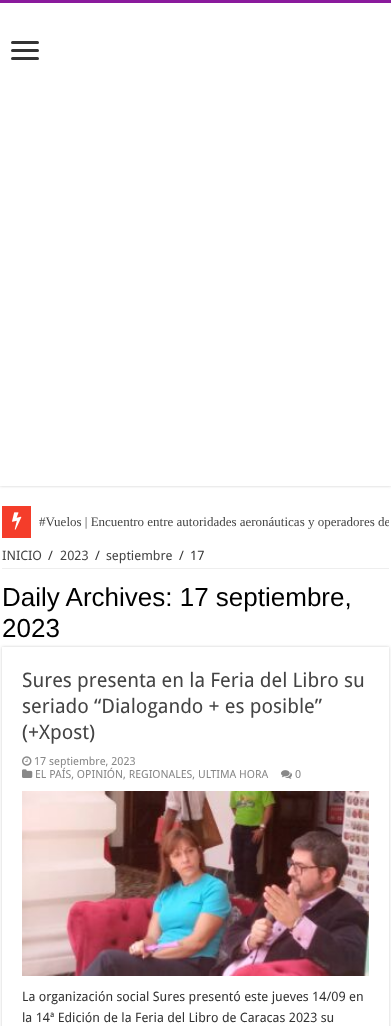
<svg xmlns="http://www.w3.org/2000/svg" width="391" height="1026">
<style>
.a{font:13px Liberation Serif;fill:#444}
.b{font:13px Droid Sans;fill:#444}
.c{font:13px Droid Sans;fill:#333}
.d{font:26px Liberation Sans;fill:#000}
.e{font:20px Droid Sans;fill:#444}
.f{font:11.05px Droid Sans;fill:#888}
</style>
<defs>
<clipPath id="clip1"><path d="M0 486h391v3H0z"/></clipPath>
<clipPath id="clip2"><path d="M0 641h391v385h-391zm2 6h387v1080h-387z" clip-rule="evenodd"/></clipPath>
<clipPath id="clip3"><path d="M2 506h387v32H2z"/></clipPath>
</defs>
<rect width="100%" height="100%" fill="#fff"/>
<g clip-path="url(#clip1)">
<path fill="#cacaca" filter="blur(1.5px)" d="M0 0h391v486H0z"/>
</g>
<path fill="#8a1a9c" d="M0 0h391v3H0z"/>
<rect fill="#333" x="11" y="41" width="28" height="3" rx="1.5"/>
<rect fill="#333" x="11" y="49" width="28" height="3" rx="1.5"/>
<rect fill="#333" x="11" y="57" width="28" height="3" rx="1.5"/>
<path fill="#f43d2a" d="M2 506h29v32H2z"/>
<image href="1.png" x="12" y="512" width="10" height="18"/>
<path fill="#eee" d="M2 568h387v1H2z"/>
<g clip-path="url(#clip2)">
<path fill="#cacaca" filter="blur(1.5px)" d="M2 647h387v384H2z"/>
</g>
<image href="2.png" x="22" y="756" width="10" height="10"/>
<image href="3.png" x="22" y="769" width="11" height="9"/>
<image href="4.png" x="281" y="770" width="11" height="9"/>
<image href="5.png" x="22" y="791" width="347" height="185"/>
<g clip-path="url(#clip3)">
<text class="a" x="39" y="526">#Vuelos | Encuentro entre autoridades aeronáuticas y operadores de</text>
</g>
<text class="b" x="2" y="560">INICIO</text>
<text class="c" x="48" y="560">/</text>
<text class="b" x="60" y="560">2023</text>
<text class="c" x="95" y="560">/</text>
<text class="b" x="106" y="560">septiembre</text>
<text class="c" x="179" y="560">/</text>
<text class="c" x="190" y="560">17</text>
<text class="d" x="2" y="606">Daily Archives: 17 septiembre,</text>
<text class="d" x="2" y="637">2023</text>
<text class="e" x="22" y="687">Sures presenta en la Feria del Libro su</text>
<text class="e" x="22" y="713">seriado “Dialogando + es posible”</text>
<text class="e" x="22" y="739">(+Xpost)</text>
<text class="f" x="34" y="765">17 septiembre, 2023</text>
<text class="f" x="35" y="778">EL PAÍS, OPINIÓN, REGIONALES, ULTIMA HORA</text>
<text class="f" x="295" y="778">0</text>
<text class="c" x="22" y="1001">La organización social Sures presentó este jueves 14/09 en</text>
<text class="c" x="22" y="1022">la 14ª Edición de la Feria del Libro de Caracas 2023 su</text>
</svg>
